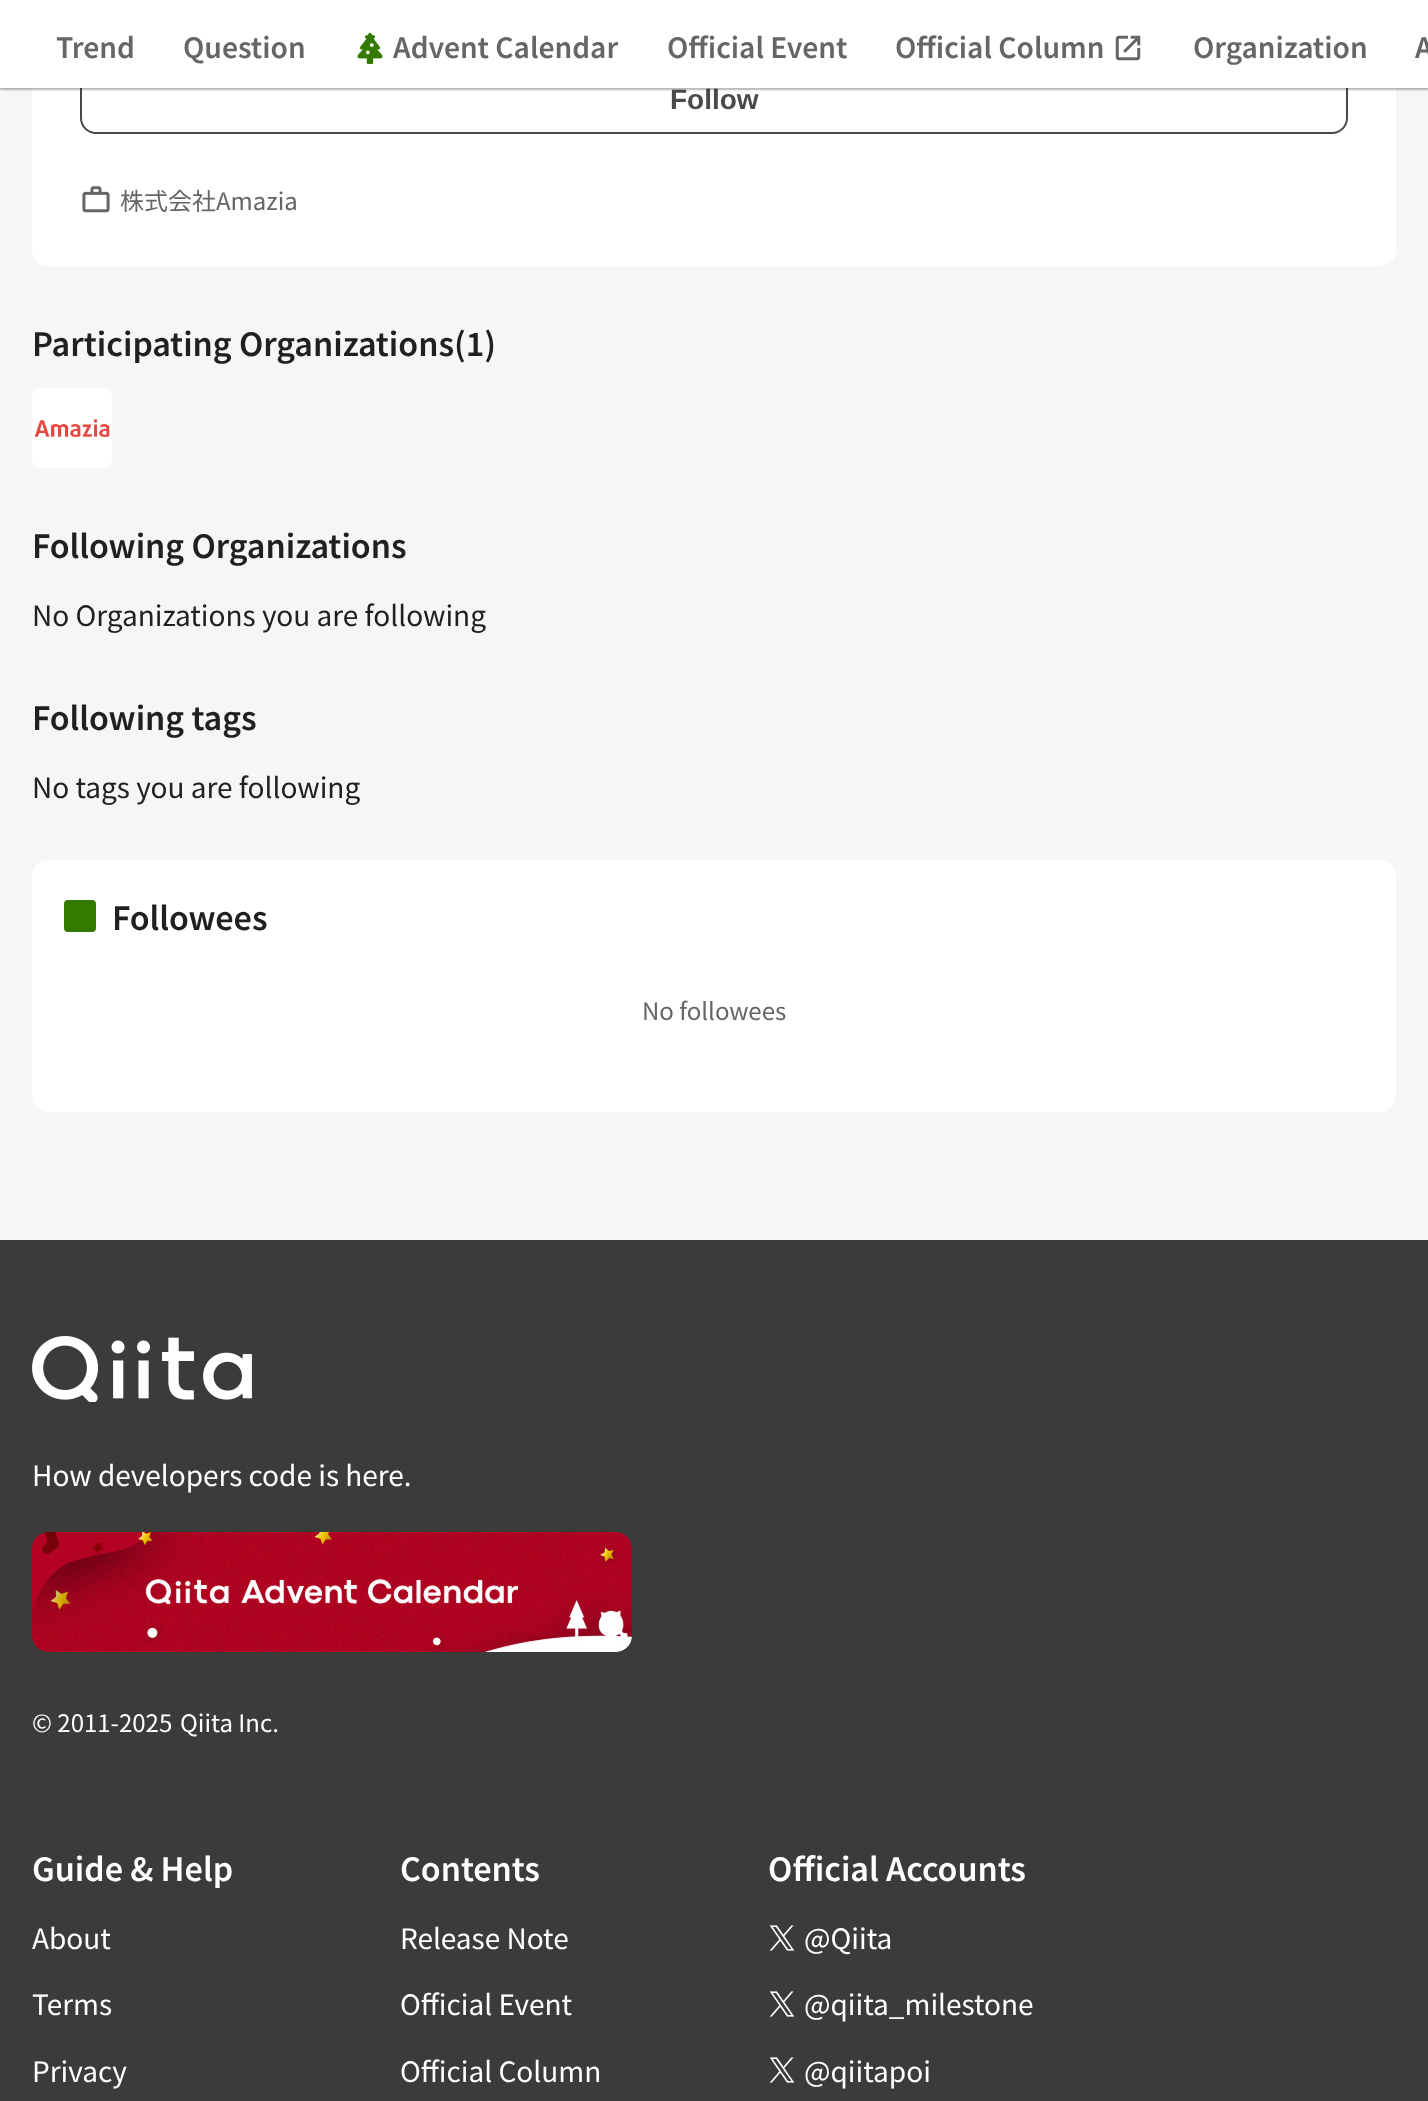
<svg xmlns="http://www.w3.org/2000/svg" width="1428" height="2101">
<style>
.a{font:bold 28px Liberation Sans;fill:#494b4b}
.b{font:600 28px Noto Sans JP;fill:#666}
.c{font:24px Noto Sans JP;fill:#666}
.d{font:600 32px Noto Sans JP;fill:#202020}
.e{font:28px Noto Sans JP;fill:#202020}
.f{font:28px Noto Sans JP;fill:#fff}
.g{font:24px Noto Sans JP;fill:#fff}
.h{font:600 32px Noto Sans JP;fill:#fff}
</style>
<rect width="100%" height="100%" fill="#f5f6f6"/>
<rect fill="#fff" x="32" y="-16" width="1364" height="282" rx="16"/>
<rect fill="none" stroke="#494b4b" stroke-width="2" x="81" y="67" width="1266" height="66" rx="15"/>
<image href="3.png" x="82" y="186" width="28" height="27"/>
<rect fill="#fff" x="32" y="388" width="80" height="80" rx="8"/>
<image href="4.png" x="34" y="419" width="76" height="18"/>
<rect fill="#fff" x="32" y="860" width="1364" height="252" rx="16"/>
<rect fill="#357a00" x="64" y="900" width="32" height="32" rx="4"/>
<path fill="#3a3c3c" d="M0 1240h1428v861H0z"/>
<image href="5.png" x="32" y="1336" width="220" height="66"/>
<image href="6.png" x="32" y="1532" width="600" height="120"/>
<image href="7.png" x="769" y="1925" width="26" height="26"/>
<image href="7.png" x="769" y="1991" width="26" height="26"/>
<image href="7.png" x="769" y="2057" width="26" height="26"/>
<text class="a" x="670" y="109">Follow</text>
<path fill="none" stroke="#00000014" stroke-width="2" d="M-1 -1h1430v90H-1z"/>
<path fill="#1e212140" filter="blur(1px)" d="M0 -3h1428v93H0z"/>
<path fill="#fff" d="M0 0h1428v88H0z"/>
<text class="b" x="1415" y="58">A</text>
<text class="b" x="1193" y="58">Organization</text>
<image href="2.png" x="1115" y="35" width="26" height="26"/>
<text class="b" x="895" y="58">Official Column</text>
<text class="b" x="667" y="58">Official Event</text>
<image href="1.png" x="357" y="32" width="26" height="32"/>
<text class="b" x="393" y="58">Advent Calendar</text>
<text class="b" x="183" y="58">Question</text>
<text class="b" x="56" y="58">Trend</text>
<text class="c" x="120" y="210">株式会社Amazia</text>
<text class="d" x="32" y="356">Participating Organizations(1)</text>
<text class="d" x="32" y="558">Following Organizations</text>
<text class="e" x="32" y="626">No Organizations you are following</text>
<text class="d" x="32" y="730">Following tags</text>
<text class="e" x="32" y="798">No tags you are following</text>
<text class="d" x="112" y="930">Followees</text>
<text class="c" x="642" y="1020">No followees</text>
<text class="f" x="32" y="1486">How developers code is here.</text>
<text class="g" x="32" y="1732">© 2011-2025</text>
<text class="g" x="180" y="1732">Qiita Inc.</text>
<text class="h" x="32" y="1881">Guide &amp; Help</text>
<text class="f" x="32" y="1949">About</text>
<text class="f" x="32" y="2015">Terms</text>
<text class="f" x="32" y="2082">Privacy</text>
<text class="h" x="400" y="1881">Contents</text>
<text class="f" x="400" y="1949">Release Note</text>
<text class="f" x="400" y="2015">Official Event</text>
<text class="f" x="400" y="2082">Official Column</text>
<text class="h" x="768" y="1881">Official Accounts</text>
<text class="f" x="804" y="1949">@Qiita</text>
<text class="f" x="804" y="2015">@qiita_milestone</text>
<text class="f" x="804" y="2082">@qiitapoi</text>
</svg>
